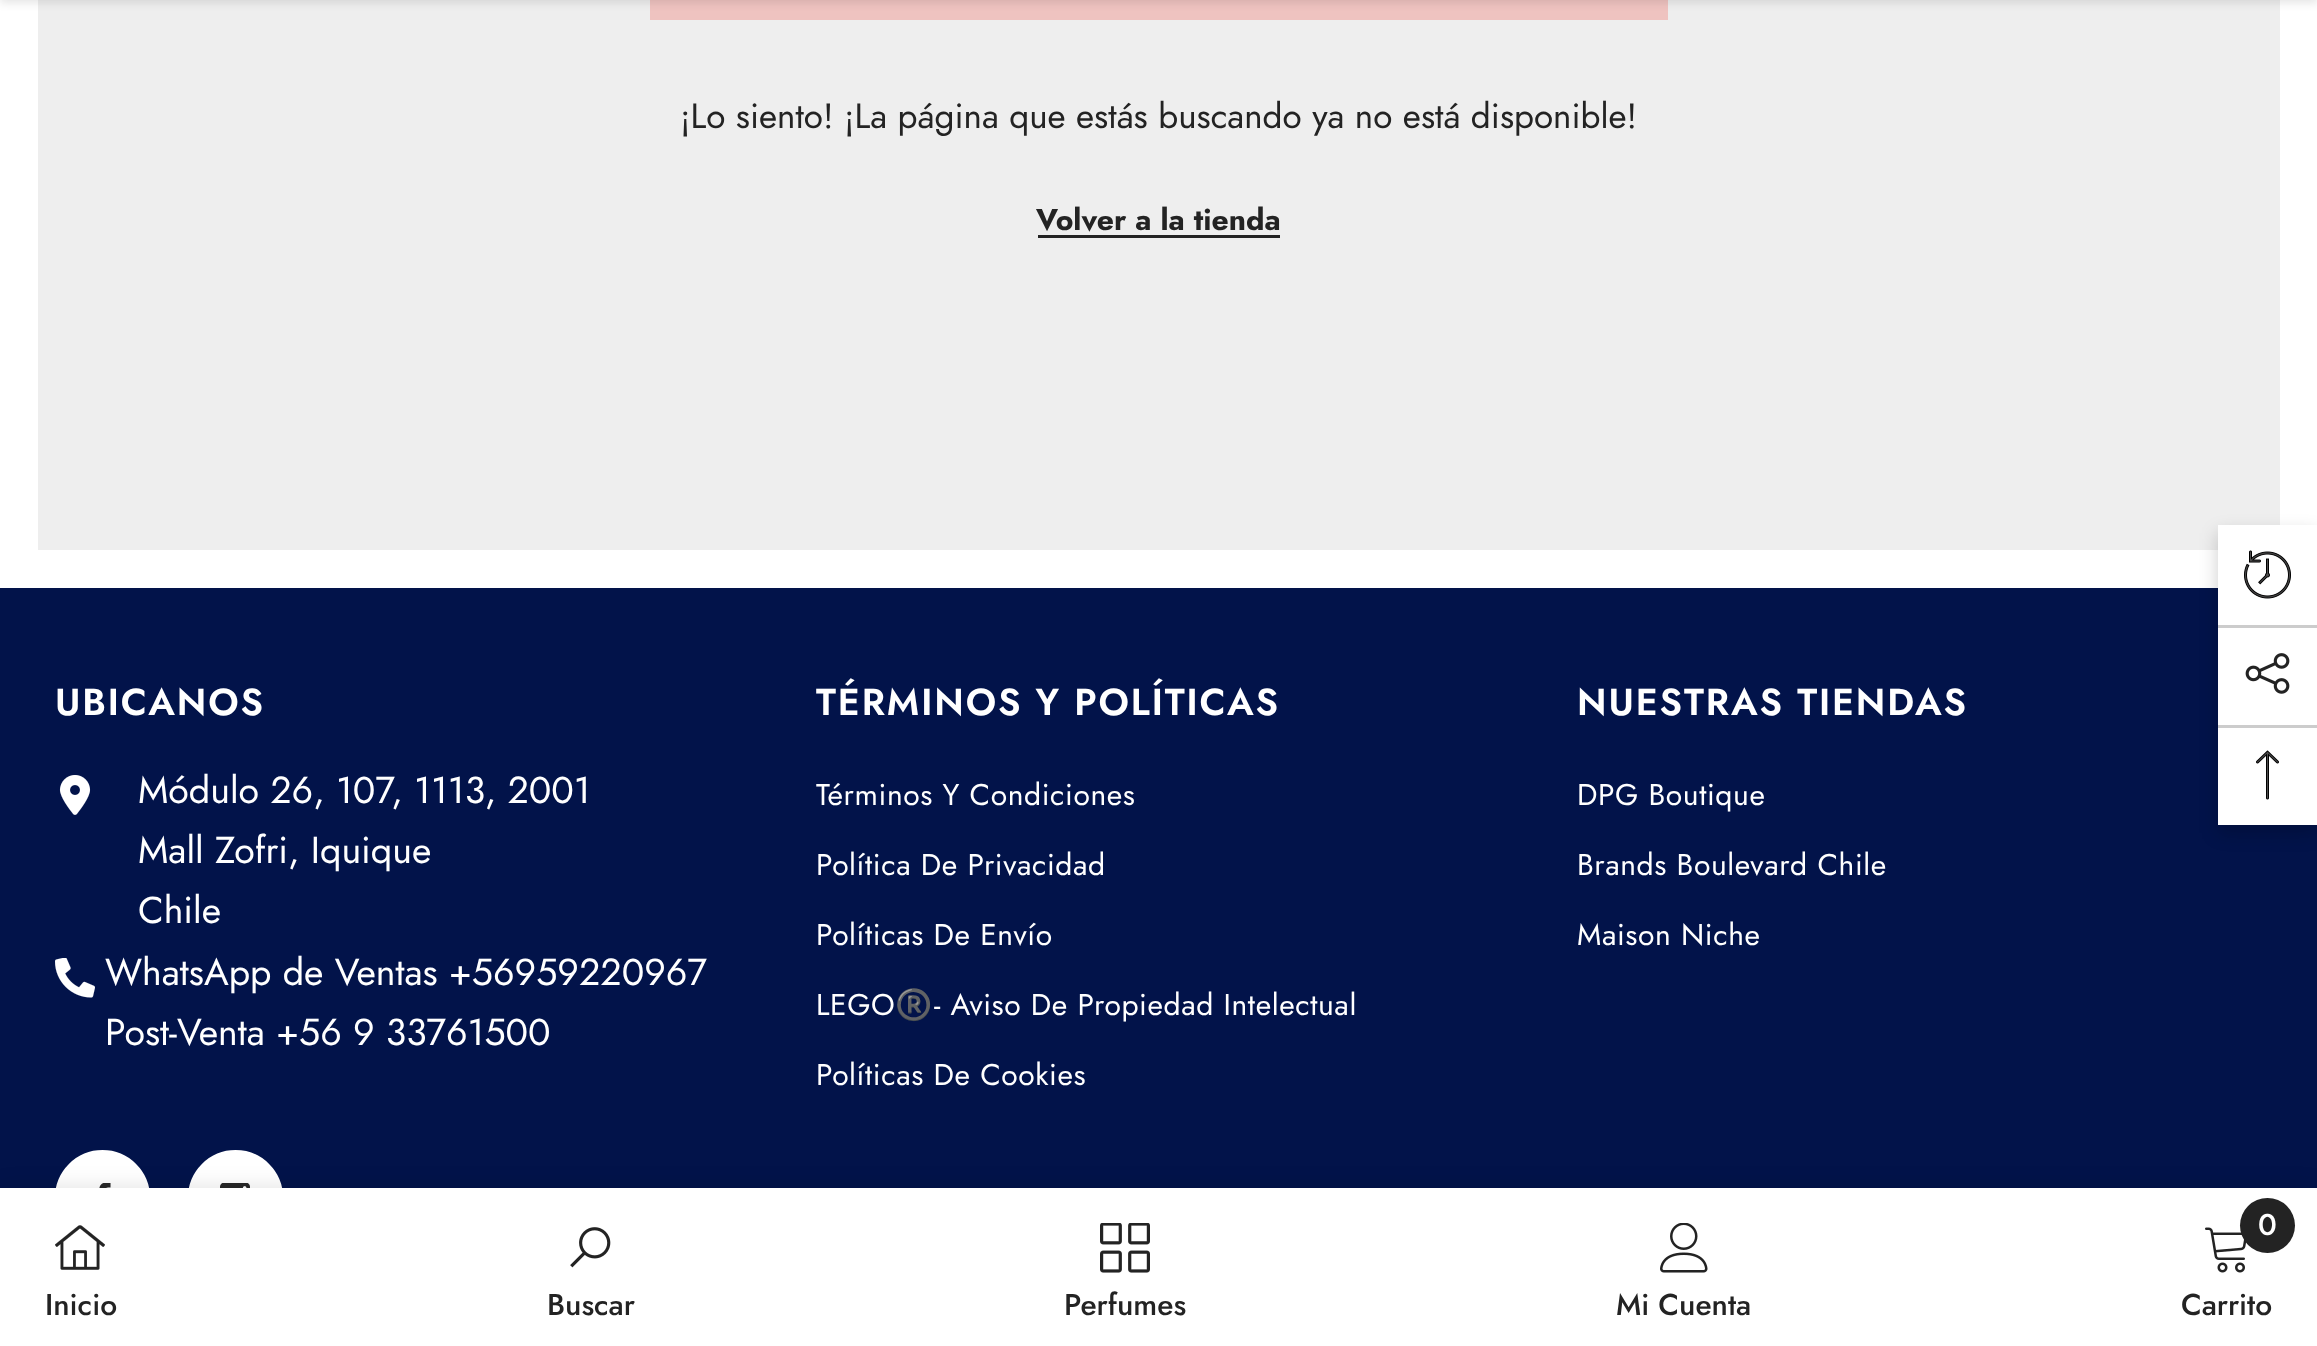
<svg xmlns="http://www.w3.org/2000/svg" width="2317" height="1346">
<style>
.a{font:35px Jost;fill:#232323}
.b{font:bold 30px Jost;fill:#232323}
.c{font:600 37.5px Jost;letter-spacing:1.9px;fill:#fff}
.d{font:37.5px Jost;fill:#fff}
.e{font:30px Jost;letter-spacing:0.6px;fill:#fff}
.f{font:30px Noto Color Emoji;letter-spacing:0.6px;fill:#fff}
.g{font:500 30px Jost;fill:#232323}
.h{font:500 30px Jost;fill:#fff}
</style>
<rect width="100%" height="100%" fill="#fff"/>
<path fill="#eee" d="M38 0h2242v550H38z"/>
<path fill="#efc3c0" d="M650 0h1018v20H650z"/>
<path fill="#0000001a" filter="blur(4px)" d="M0 -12h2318v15H0z"/>
<path fill="#232323" d="M1038 235h242v3H1038z"/>
<path fill="#02134a" d="M0 588h2317v600H0z"/>
<image href="1.png" x="59" y="775" width="32" height="40"/>
<image href="2.png" x="55" y="958" width="40" height="40"/>
<circle fill="#fff" stroke="#fff" stroke-width="3" cx="102.5" cy="1197.5" r="46"/>
<image href="3.png" x="99" y="1183" width="12" height="5"/>
<circle fill="#fff" stroke="#fff" stroke-width="3" cx="235.5" cy="1197.5" r="46"/>
<image href="4.png" x="220" y="1183" width="30" height="5"/>
<path fill="#0000001f" filter="blur(11px)" d="M0 1188h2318v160H0z"/>
<path fill="#fff" d="M0 1188h2317v158H0z"/>
<image href="5.png" x="55" y="1225" width="50" height="45"/>
<image href="6.png" x="570" y="1227" width="41" height="41"/>
<image href="7.png" x="1100" y="1223" width="50" height="50"/>
<image href="8.png" x="1660" y="1223" width="48" height="50"/>
<image href="9.png" x="2205" y="1227" width="42" height="46"/>
<circle fill="#232323" cx="2267.5" cy="1225.5" r="27.5"/>
<path fill="#00000033" filter="blur(9px)" d="M2218 533h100v300H2218z"/>
<path fill="#fff" d="M2218 525h99v300H2218z"/>
<image href="10.png" x="2244" y="550" width="47" height="49"/>
<path fill="#ccc" d="M2218 625h99v3H2218z"/>
<image href="11.png" x="2245" y="653" width="45" height="41"/>
<path fill="#ccc" d="M2218 725h99v3H2218z"/>
<image href="12.png" x="2256" y="750" width="23" height="50"/>
<text class="a" x="680" y="128">¡Lo siento! ¡La página que estás buscando ya no está disponible!</text>
<text class="b" x="1036" y="230">Volver a la tienda</text>
<text class="c" x="55" y="715">UBICANOS</text>
<text class="d" x="138" y="803">Módulo 26, 107, 1113, 2001</text>
<text class="d" x="138" y="863">Mall Zofri, Iquique</text>
<text class="d" x="138" y="923">Chile</text>
<text class="d" x="105" y="985">WhatsApp de Ventas +56959220967</text>
<text class="d" x="105" y="1045">Post-Venta +56 9 33761500</text>
<text class="c" x="816" y="715">TÉRMINOS Y POLÍTICAS</text>
<text class="e" x="816" y="805">Términos Y Condiciones</text>
<text class="e" x="816" y="875">Política De Privacidad</text>
<text class="e" x="816" y="945">Políticas De Envío</text>
<text class="e" x="816" y="1015">LEGO</text>
<text class="f" x="895" y="1015">®️</text>
<text class="e" x="934" y="1015">- Aviso De Propiedad Intelectual</text>
<text class="e" x="816" y="1085">Políticas De Cookies</text>
<text class="c" x="1577" y="715">NUESTRAS TIENDAS</text>
<text class="e" x="1577" y="805">DPG Boutique</text>
<text class="e" x="1577" y="875">Brands Boulevard Chile</text>
<text class="e" x="1577" y="945">Maison Niche</text>
<text class="g" x="45" y="1315">Inicio</text>
<text class="g" x="547" y="1315">Buscar</text>
<text class="g" x="1064" y="1315">Perfumes</text>
<text class="g" x="1616" y="1315">Mi Cuenta</text>
<text class="h" x="2258" y="1235">0</text>
<text class="g" x="2181" y="1315">Carrito</text>
</svg>
